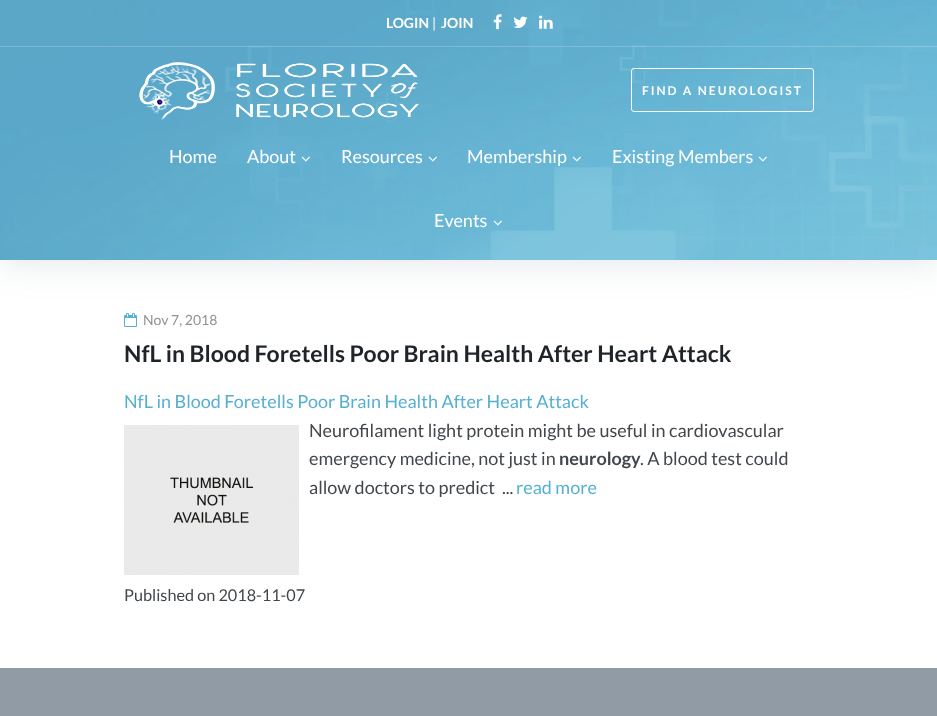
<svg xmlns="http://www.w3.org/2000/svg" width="937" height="716">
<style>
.a{font:bold 14px Lato;fill:#fff}
.b{font:14px Lato;fill:#fff}
.c{font:bold 12px Lato;letter-spacing:2px;fill:#fff}
.d{font:18px Lato;fill:#fff}
.e{font:14px Lato;fill:#8f9395}
.f{font:bold 23px Lato;fill:#1e2428}
.g{font:18px Lato;fill:#56b0d2}
.h{font:18px Lato;fill:#42474c}
.i{font:bold 18px Lato;fill:#42474c}
.j{font:16.25px Lato;fill:#42474c}
</style>
<rect width="100%" height="100%" fill="#fff"/>
<path fill="#677a8d2b" filter="blur(16px)" d="M0 5h937v260H0z"/>
<image href="1.png" x="0" y="0" width="937" height="260"/>
<path fill="#ffffff1a" d="M0 0h937v47H0z"/>
<path fill="#ffffff33" d="M0 46h937v1H0z"/>
<image href="2.png" x="493" y="14" width="9" height="16"/>
<image href="3.png" x="513" y="16" width="15" height="12"/>
<image href="4.png" x="539" y="15" width="14" height="14"/>
<path fill="#ffffff1a" d="M0 47h937v213H0z"/>
<image href="5.png" x="139" y="62" width="280" height="58"/>
<rect fill="none" stroke="#fff" x="631.5" y="68.5" width="182" height="43" rx="2.5"/>
<image href="6.png" x="301" y="156" width="9" height="6"/>
<image href="7.png" x="428" y="156" width="9" height="6"/>
<image href="8.png" x="572" y="156" width="9" height="6"/>
<image href="9.png" x="758" y="156" width="9" height="6"/>
<image href="10.png" x="493" y="220" width="9" height="6"/>
<image href="11.png" x="124" y="313" width="13" height="14"/>
<image href="12.png" x="124" y="425" width="175" height="150"/>
<path fill="#919ba6" d="M0 668h937v48H0z"/>
<text class="a" x="386" y="28">LOGIN</text>
<text class="b" x="432" y="28">|</text>
<text class="a" x="441" y="28">JOIN</text>
<text class="c" x="642" y="95">FIND A NEUROLOGIST</text>
<text class="d" x="169" y="163">Home</text>
<text class="d" x="247" y="163">About</text>
<text class="d" x="341" y="163">Resources</text>
<text class="d" x="467" y="163">Membership</text>
<text class="d" x="612" y="163">Existing Members</text>
<text class="d" x="434" y="227">Events</text>
<text class="e" x="143" y="325">Nov 7, 2018</text>
<text class="f" x="124" y="362">NfL in Blood Foretells Poor Brain Health After Heart Attack</text>
<text class="g" x="124" y="408">NfL in Blood Foretells Poor Brain Health After Heart Attack</text>
<text class="h" x="309" y="437">Neurofilament light protein might be useful in cardiovascular</text>
<text class="h" x="309" y="465">emergency medicine, not just in</text>
<text class="i" x="559" y="465">neurology</text>
<text class="h" x="640" y="465">. A blood test could</text>
<text class="h" xml:space="preserve" x="309" y="494">allow doctors to predict  ...</text>
<text class="g" x="516" y="494">read more</text>
<text class="j" x="124" y="601">Published on 2018-11-07</text>
</svg>
